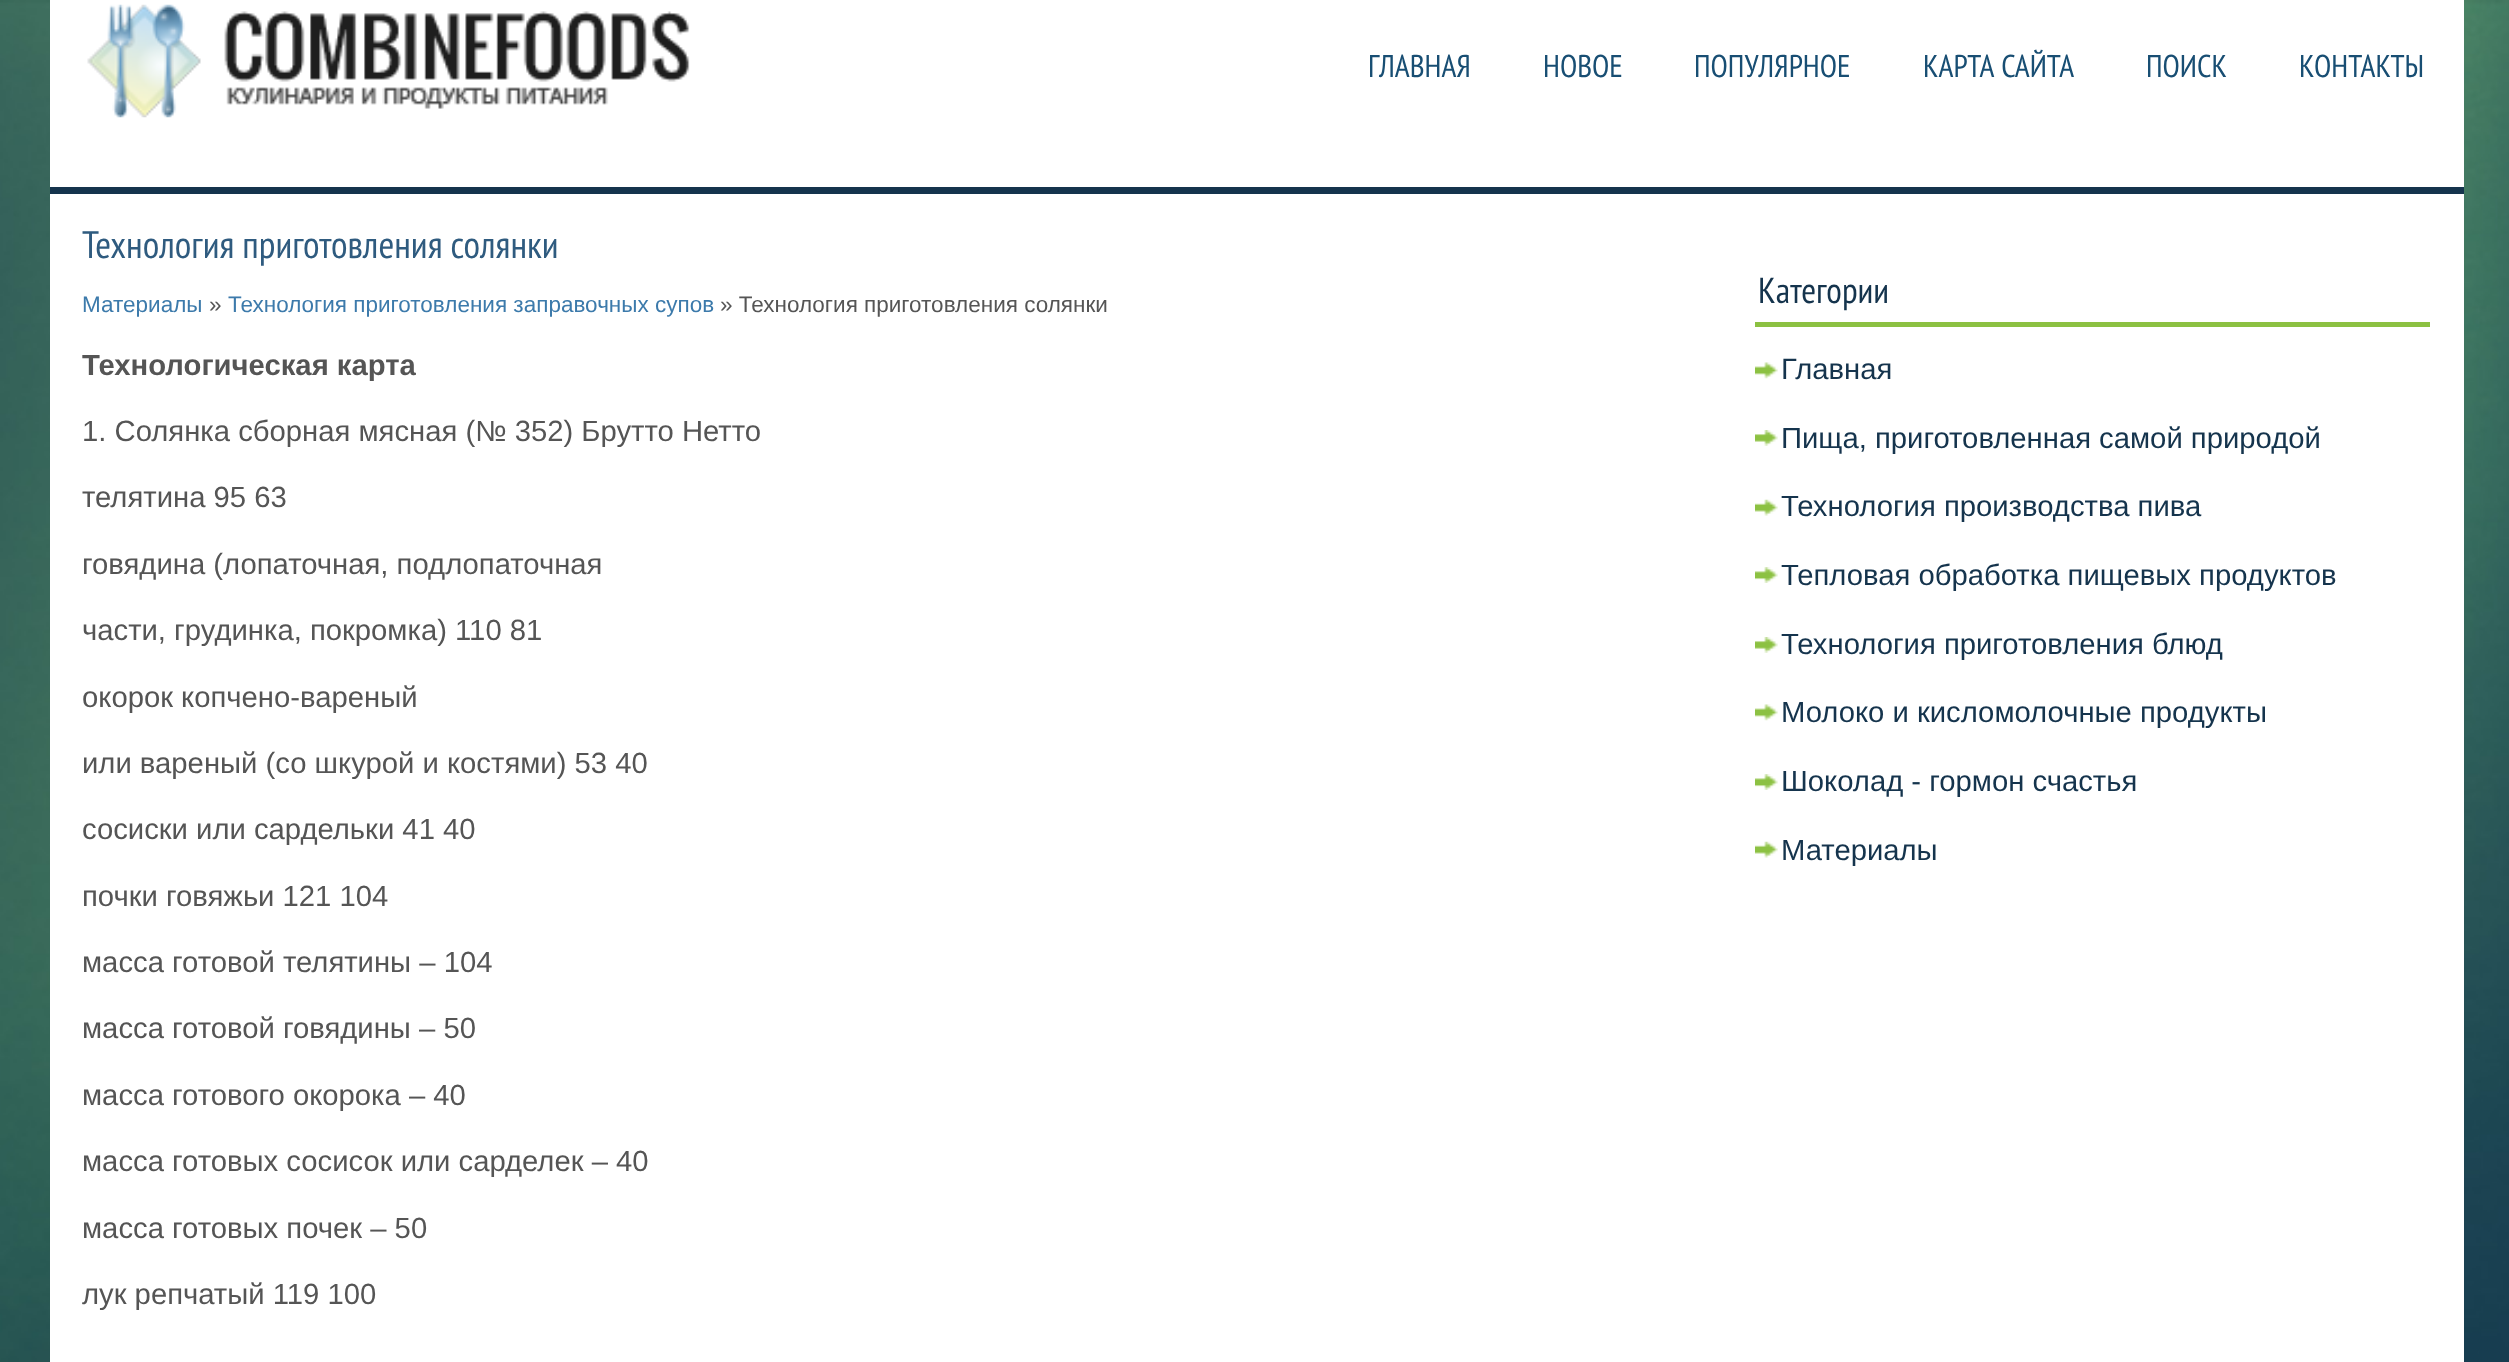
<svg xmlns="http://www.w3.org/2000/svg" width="2509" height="1362">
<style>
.a{font:31.5px PT Sans Narrow;fill:#184e73}
.b{font:38.25px PT Sans Narrow;fill:#2f5b7f}
.c{font:22.5px Liberation Sans;fill:#3c7aab}
.d{font:22.5px Liberation Sans;fill:#555}
.e{font:bold 29.25px Liberation Sans;fill:#555}
.f{font:29.25px Liberation Sans;fill:#555}
.g{font:36px PT Sans Narrow;fill:#15344d}
.h{font:29.25px Liberation Sans;fill:#15344d}
</style>
<rect width="100%" height="100%" fill="#fff"/>
<image href="1.png" x="0" y="0" width="2509" height="1362"/>
<path fill="#fff" d="M50 0h2414v1362H50z"/>
<image href="2.png" x="87" y="4" width="603" height="114"/>
<path fill="#15344d" d="M50 187h2414v7H50z"/>
<path fill="#8cc142" d="M1755 322h675v5H1755z"/>
<image href="3.png" x="1755" y="362" width="23" height="17"/>
<image href="4.png" x="1755" y="430" width="23" height="16"/>
<image href="5.png" x="1755" y="499" width="23" height="17"/>
<image href="6.png" x="1755" y="567" width="23" height="16"/>
<image href="4.png" x="1755" y="637" width="23" height="16"/>
<image href="7.png" x="1755" y="704" width="23" height="17"/>
<image href="6.png" x="1755" y="774" width="23" height="16"/>
<image href="8.png" x="1755" y="841" width="23" height="17"/>
<text class="a" x="1368" y="77">ГЛАВНАЯ</text>
<text class="a" x="1543" y="77">НОВОЕ</text>
<text class="a" x="1694" y="77">ПОПУЛЯРНОЕ</text>
<text class="a" x="1923" y="77" word-spacing="1">КАРТА САЙТА</text>
<text class="a" x="2146" y="77">ПОИСК</text>
<text class="a" x="2299" y="77">КОНТАКТЫ</text>
<text class="b" x="82" y="258">Технология приготовления солянки</text>
<text class="c" x="82" y="312">Материалы</text>
<text class="d" x="209" y="312">»</text>
<text class="c" x="228" y="312">Технология приготовления заправочных супов</text>
<text class="d" x="720" y="312">» Технология приготовления солянки</text>
<text class="e" x="82" y="375">Технологическая карта</text>
<text class="f" x="82" y="441">1. Солянка сборная мясная (№ 352) Брутто Нетто</text>
<text class="f" x="82" y="507">телятина 95 63</text>
<text class="f" x="82" y="574">говядина (лопаточная, подлопаточная</text>
<text class="f" x="82" y="640">части, грудинка, покромка) 110 81</text>
<text class="f" x="82" y="707">окорок копчено-вареный</text>
<text class="f" x="82" y="773">или вареный (со шкурой и костями) 53 40</text>
<text class="f" x="82" y="839">сосиски или сардельки 41 40</text>
<text class="f" x="82" y="906">почки говяжьи 121 104</text>
<text class="f" x="82" y="972">масса готовой телятины – 104</text>
<text class="f" x="82" y="1038">масса готовой говядины – 50</text>
<text class="f" x="82" y="1105">масса готового окорока – 40</text>
<text class="f" x="82" y="1171">масса готовых сосисок или сарделек – 40</text>
<text class="f" x="82" y="1238">масса готовых почек – 50</text>
<text class="f" x="82" y="1304">лук репчатый 119 100</text>
<text class="g" x="1758" y="303">Категории</text>
<text class="h" x="1781" y="379">Главная</text>
<text class="h" x="1781" y="448">Пища, приготовленная самой природой</text>
<text class="h" x="1781" y="516">Технология производства пива</text>
<text class="h" x="1781" y="585">Тепловая обработка пищевых продуктов</text>
<text class="h" x="1781" y="654">Технология приготовления блюд</text>
<text class="h" x="1781" y="722">Молоко и кисломолочные продукты</text>
<text class="h" x="1781" y="791">Шоколад - гормон счастья</text>
<text class="h" x="1781" y="860">Материалы</text>
</svg>
